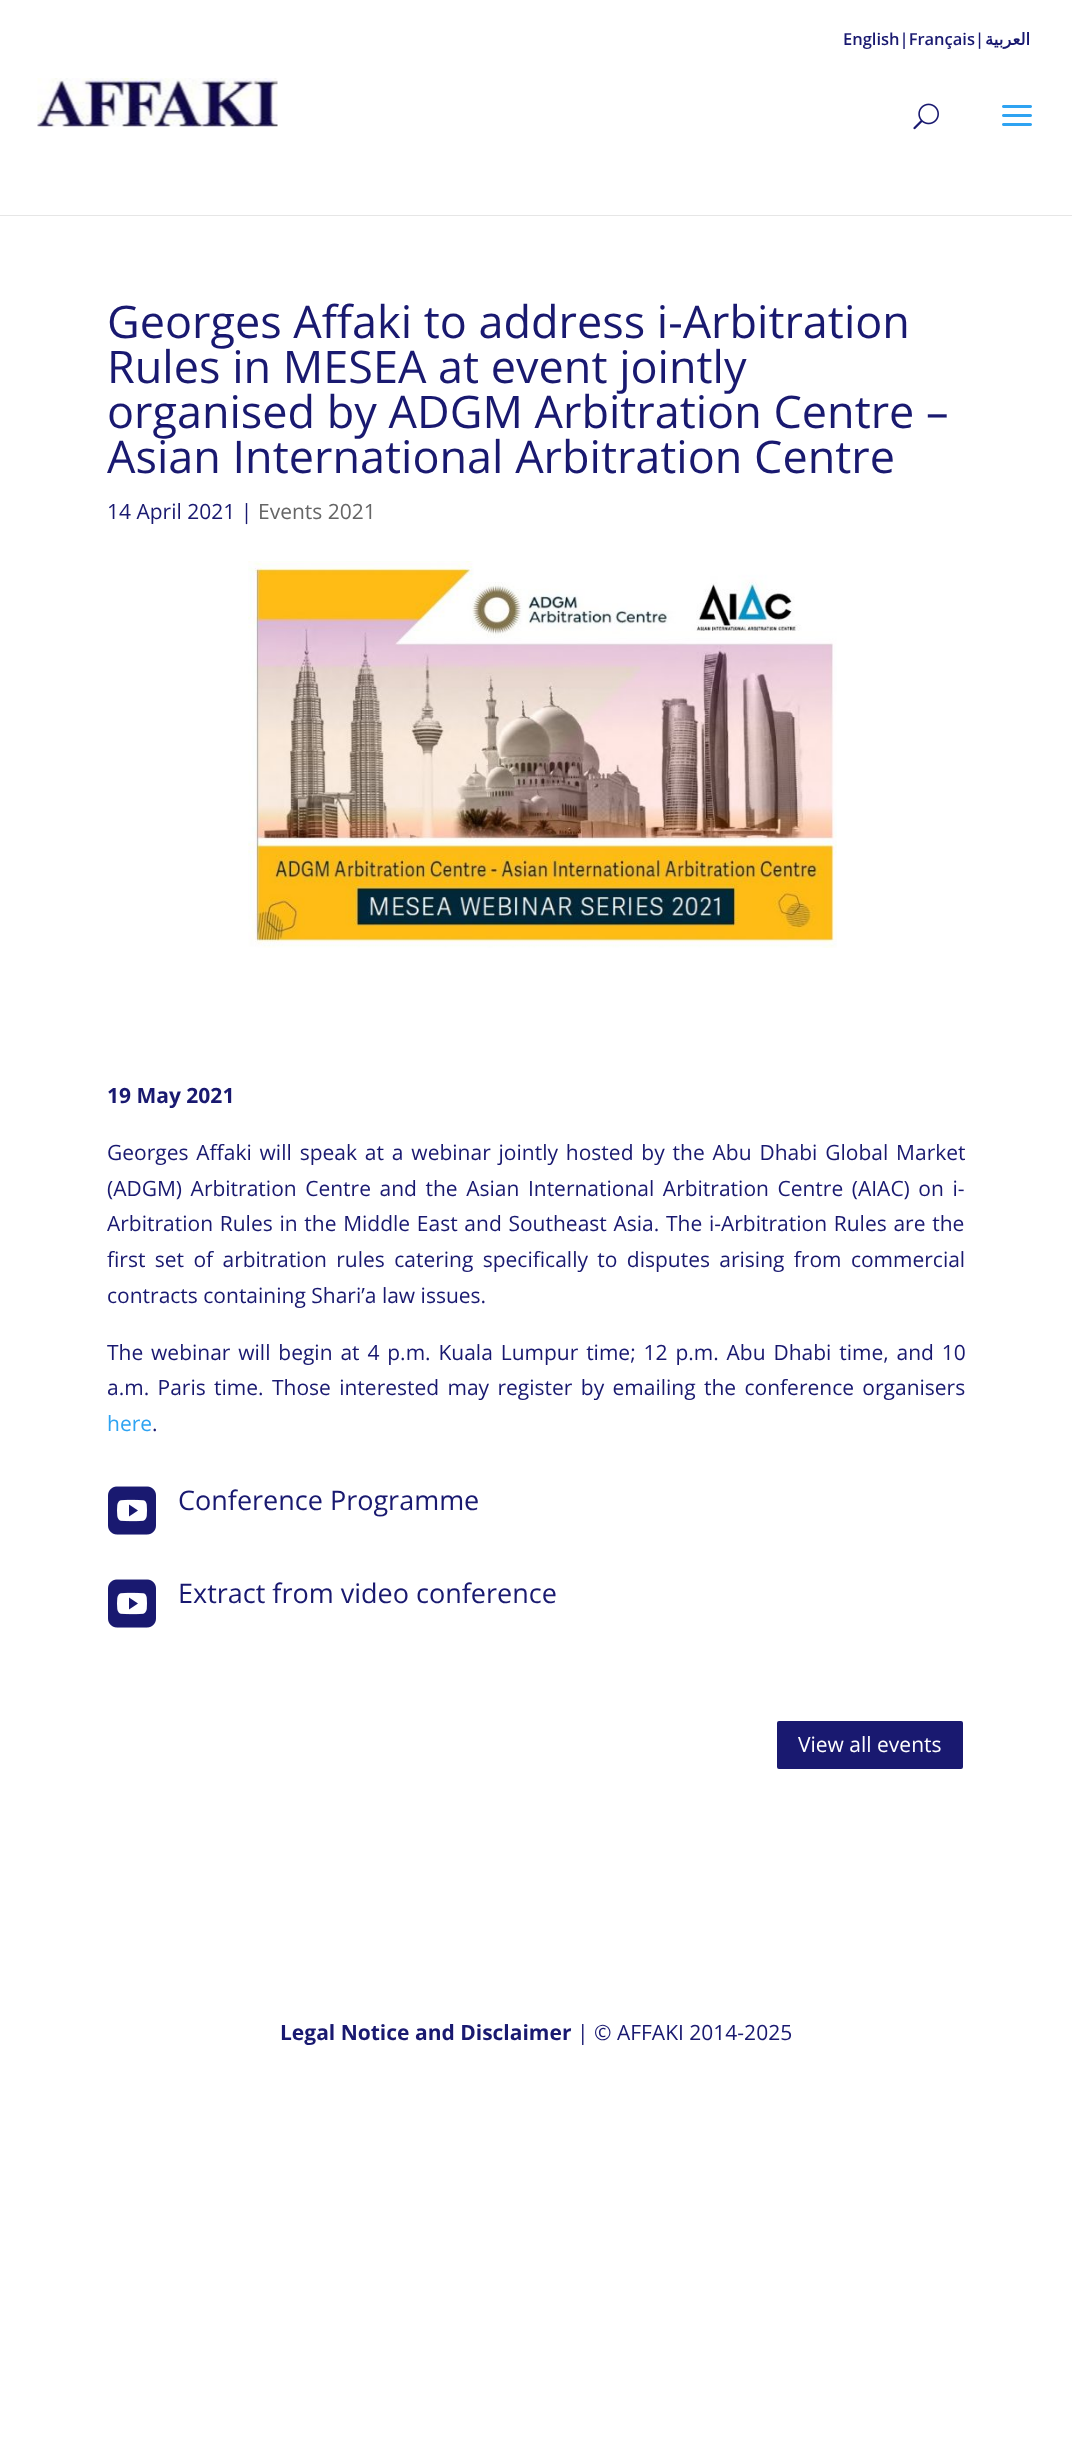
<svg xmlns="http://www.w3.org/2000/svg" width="1072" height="2459">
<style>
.a{font:600 16.5px Open Sans;fill:#191970}
.b{font:bold 16.5px DejaVu Sans;direction:rtl;fill:#191970}
.c{font:45px Open Sans;fill:#191970}
.d{font:21px Open Sans;fill:#191970}
.e{font:21px Open Sans;fill:#666}
.f{font:bold 21px Open Sans;fill:#191970}
.g{font:21px Open Sans;fill:#2ea3f2}
.h{font:27px Open Sans;fill:#191970}
.i{font:21px Open Sans;fill:#fff}
</style>
<rect width="100%" height="100%" fill="#fff"/>
<path fill="#e6e6e6" d="M0 214v2h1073v-157h-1v155z"/>
<path fill="#fff" d="M0 214h1072v1H0z"/>
<image href="1.png" x="37" y="78" width="241" height="49"/>
<image href="2.png" x="913" y="103" width="26" height="27"/>
<image href="3.png" x="1002" y="105" width="30" height="21"/>
<image href="4.png" x="248" y="561" width="589" height="387"/>
<image href="5.png" x="108" y="1486" width="48" height="49"/>
<image href="5.png" x="108" y="1579" width="48" height="49"/>
<rect fill="#191970" stroke="#fff" stroke-width="3" x="775.5" y="1719.5" width="189" height="51" rx="3.5"/>
<text class="a" x="843" y="45">English|Français|</text>
<text class="b" x="1030" y="45">العربية</text>
<text class="c" x="107" y="338">Georges Affaki to address i-Arbitration</text>
<text class="c" x="107" y="383">Rules in MESEA at event jointly</text>
<text class="c" x="107" y="428">organised by ADGM Arbitration Centre –</text>
<text class="c" x="107" y="473">Asian International Arbitration Centre</text>
<text class="d" x="107" y="519">14 April 2021 |</text>
<text class="e" x="258" y="519">Events 2021</text>
<text class="f" x="107" y="1103">19 May 2021</text>
<text class="d" x="107" y="1160" word-spacing="2.4">Georges Affaki will speak at a webinar jointly hosted by the Abu Dhabi Global Market</text>
<text class="d" x="107" y="1196" word-spacing="3.1">(ADGM) Arbitration Centre and the Asian International Arbitration Centre (AIAC) on i-</text>
<text class="d" x="107" y="1231" word-spacing="1.25">Arbitration Rules in the Middle East and Southeast Asia. The i-Arbitration Rules are the</text>
<text class="d" x="107" y="1267" word-spacing="3.9">first set of arbitration rules catering specifically to disputes arising from commercial</text>
<text class="d" x="107" y="1303">contracts containing Shari’a law issues.</text>
<text class="d" x="107" y="1360" word-spacing="2.4">The webinar will begin at 4 p.m. Kuala Lumpur time; 12 p.m. Abu Dhabi time, and 10</text>
<text class="d" x="107" y="1395" word-spacing="2.9">a.m. Paris time. Those interested may register by emailing the conference organisers</text>
<text class="g" x="107" y="1431">here</text>
<text class="d" x="152" y="1431">.</text>
<text class="h" x="178" y="1510">Conference Programme</text>
<text class="h" x="178" y="1603">Extract from video conference</text>
<text class="i" x="798" y="1752">View all events</text>
<text class="f" x="280" y="2040">Legal Notice and Disclaimer</text>
<text class="d" x="577" y="2040">| © AFFAKI 2014-2025</text>
</svg>
